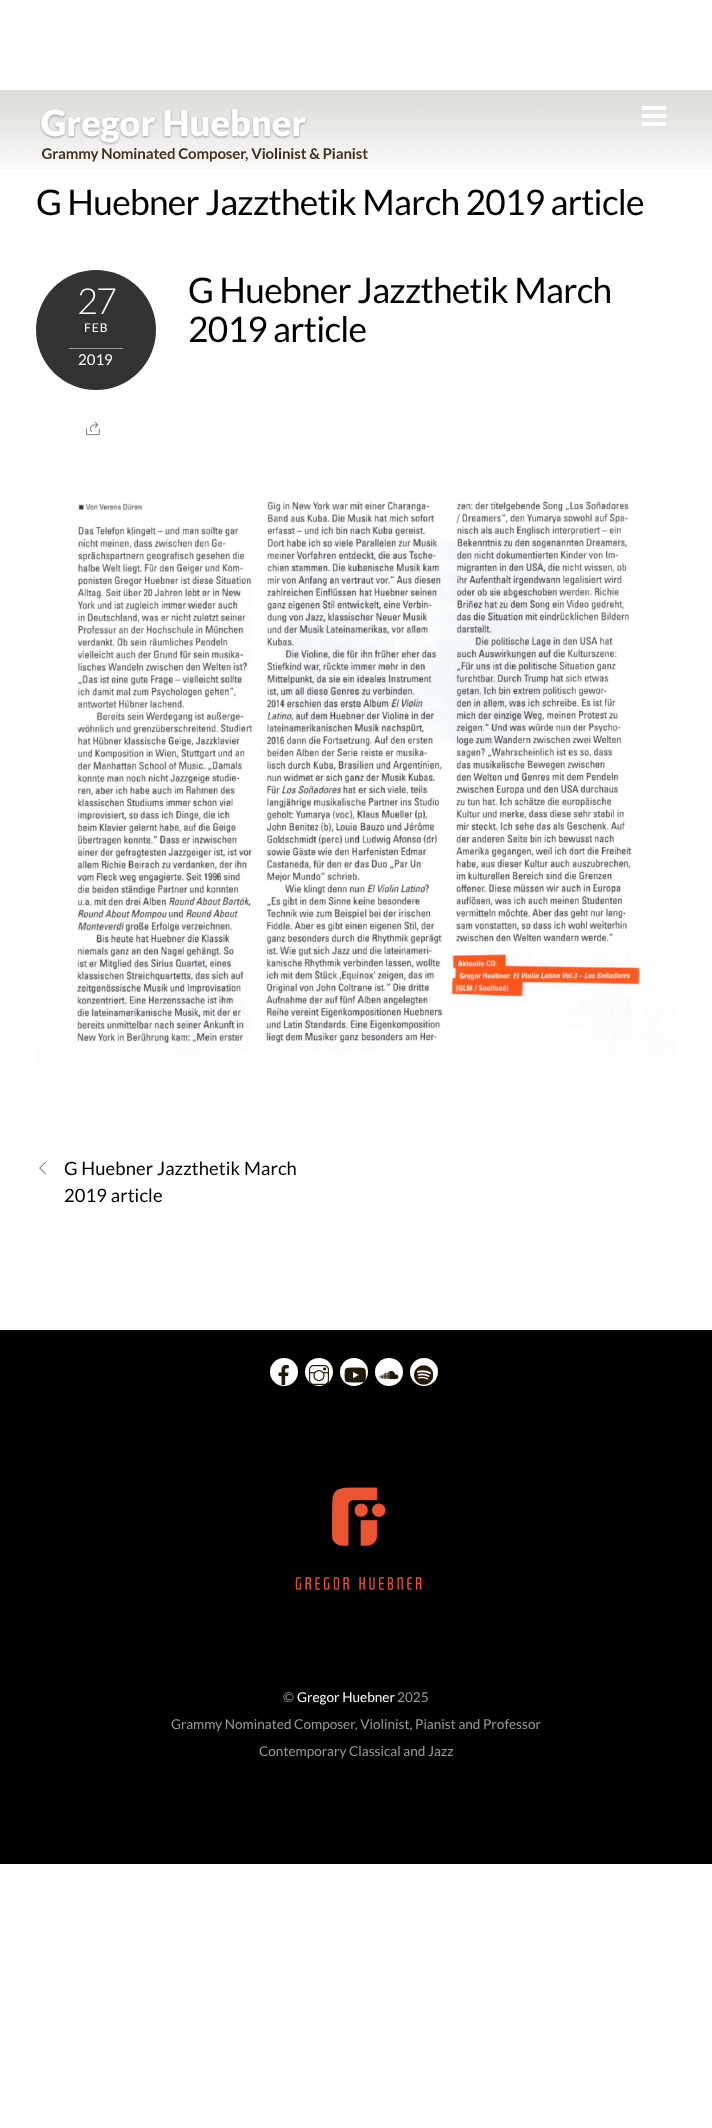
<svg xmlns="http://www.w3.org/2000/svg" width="712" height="2128">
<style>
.a{font:35.25px Lato;letter-spacing:-0.7px;fill:#000}
.b{font:300 36px Lato;letter-spacing:-2px;fill:#fff}
.c{font:12px Lato;letter-spacing:1px;fill:#fff}
.d{font:15px Lato;fill:#fff}
.e{font:18.4px Lato;letter-spacing:0.1px;fill:#000}
.f{font:13.6px Lato;fill:#999}
.g{font:13.6px Lato;fill:#fff}
</style>
<rect width="100%" height="100%" fill="#fff"/>
<image href="1.png" x="0" y="90" width="712" height="80"/>
<image href="2.png" x="40" y="108" width="328" height="54"/>
<path fill="#fff" d="M642 106h24v4H642z"/>
<path fill="#fff" d="M642 122h24v4H642z"/>
<path fill="#fff" d="M642 114h24v4H642z"/>
<circle fill="#333" cx="96" cy="330" r="60"/>
<path fill="#999" d="M69 348h54v1H69z"/>
<image href="3.png" x="86" y="422" width="14" height="14"/>
<image href="4.png" x="36" y="501" width="640" height="564"/>
<image href="5.png" x="39" y="1161" width="8" height="14"/>
<path fill="#000" d="M0 1330h712v534H0z"/>
<circle fill="#fff" cx="284" cy="1372" r="14"/>
<image href="6.png" x="278" y="1365" width="11" height="20"/>
<circle fill="#fff" cx="319" cy="1372" r="14"/>
<image href="7.png" x="309" y="1365" width="20" height="20"/>
<circle fill="#fff" cx="354" cy="1372" r="14"/>
<image href="8.png" x="344" y="1367" width="22" height="16"/>
<circle fill="#fff" cx="389" cy="1372" r="14"/>
<image href="9.png" x="379" y="1370" width="20" height="10"/>
<circle fill="#fff" cx="424" cy="1372" r="14"/>
<image href="10.png" x="414" y="1365" width="19" height="20"/>
<image href="11.png" x="295" y="1487" width="127" height="103"/>
<text class="a" x="36" y="215">G Huebner Jazzthetik March 2019 article</text>
<text class="b" x="77" y="314">27</text>
<text class="c" x="84" y="332">FEB</text>
<text class="d" x="78" y="365">2019</text>
<text class="a" x="188" y="303">G Huebner Jazzthetik March</text>
<text class="a" x="188" y="342">2019 article</text>
<text class="e" x="64" y="1175">G Huebner Jazzthetik March</text>
<text class="e" x="64" y="1202">2019 article</text>
<text class="f" x="283" y="1702">©</text>
<text class="g" x="297" y="1702">Gregor Huebner</text>
<text class="f" x="397" y="1702">2025</text>
<text class="f" x="171" y="1729">Grammy Nominated Composer, Violinist, Pianist and Professor</text>
<text class="f" x="259" y="1756">Contemporary Classical and Jazz</text>
</svg>
